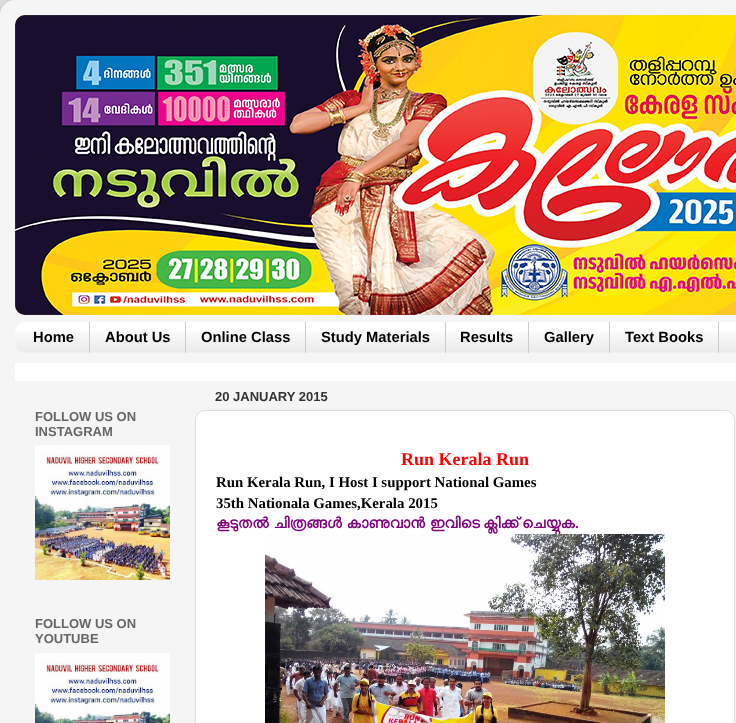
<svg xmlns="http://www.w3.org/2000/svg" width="736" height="723">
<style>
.a{font:bold 14.75px Liberation Sans;fill:#000}
.b{font:bold 13px Liberation Sans;fill:#666}
.c{font:bold 13px Liberation Sans;fill:#333}
.d{font:bold 18px Liberation Serif;fill:#f00}
.e{font:bold 14.85px Liberation Serif;fill:#000}
.f{font:bold 14.85px FreeSans;fill:#800080}
.g{font:bold 14.85px Liberation Serif;fill:#800080}
</style>
<defs>
<clipPath id="clip1"><path d="M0 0h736v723h-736zm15 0h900c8.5 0 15 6.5 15 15v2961c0 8.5-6.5 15-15 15h-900c-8.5 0-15-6.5-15-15v-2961c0-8.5 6.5-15 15-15z" clip-rule="evenodd"/></clipPath>
</defs>
<rect width="100%" height="100%" fill="#ddd"/>
<g clip-path="url(#clip1)">
<rect fill="#00000026" filter="blur(1.5px)" width="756" height="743" rx="15"/>
</g>
<image href="1.png" x="0" y="0" width="736" height="723"/>
<rect fill="#921" x="15" y="15" width="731" height="300" rx="10"/>
<image href="2.png" x="15" y="15" width="10" height="10"/>
<image href="3.png" x="15" y="15" width="721" height="300"/>
<rect fill="#fff" x="15" y="322" width="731" height="31" rx="10"/>
<image href="4.png" x="15" y="332" width="721" height="21"/>
<path fill="#ccc" d="M89 322h1v31H89z"/>
<path fill="#ccc" d="M185 322h1v31H185z"/>
<path fill="#ccc" d="M305 322h1v31H305z"/>
<path fill="#ccc" d="M445 322h1v31H445z"/>
<path fill="#ccc" d="M528 322h1v31H528z"/>
<path fill="#ccc" d="M609 322h1v31H609z"/>
<path fill="#ccc" d="M718 322h1v31H718z"/>
<path fill="#fff" d="M15 363h721v18H15z"/>
<image href="5.png" x="35" y="445" width="135" height="135"/>
<image href="6.png" x="35" y="653" width="135" height="70"/>
<rect fill="#fff" stroke="#ddd" x="195.5" y="410.5" width="539" height="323" rx="9.5"/>
<text class="a" x="33" y="342">Home</text>
<text class="a" x="105" y="342">About Us</text>
<text class="a" x="201" y="342">Online Class</text>
<text class="a" x="321" y="342">Study Materials</text>
<text class="a" x="460" y="342">Results</text>
<text class="a" x="544" y="342">Gallery</text>
<text class="a" x="625" y="342">Text Books</text>
<text class="b" x="35" y="421">FOLLOW US ON</text>
<text class="b" x="35" y="436">INSTAGRAM</text>
<text class="b" x="35" y="628">FOLLOW US ON</text>
<text class="b" x="35" y="643">YOUTUBE</text>
<text class="c" x="215" y="401">20 JANUARY 2015</text>
<text class="d" x="401" y="465">Run Kerala Run</text>
<text class="e" x="216" y="487">Run Kerala Run, I Host I support National Games</text>
<text class="e" x="216" y="508">35th Nationala Games,Kerala 2015</text>
<text class="f" x="216" y="528" word-spacing="-1">കൂടുതൽ ചിത്രങ്ങൾ കാണുവാൻ ഇവിടെ</text>
<text class="f" x="483" y="528">ക്ലിക്ക്</text>
<text class="f" x="522" y="528">ചെയ്യുക</text>
<text class="g" x="575" y="528">.</text>
<image href="7.png" x="265" y="534" width="400" height="189"/>
</svg>
